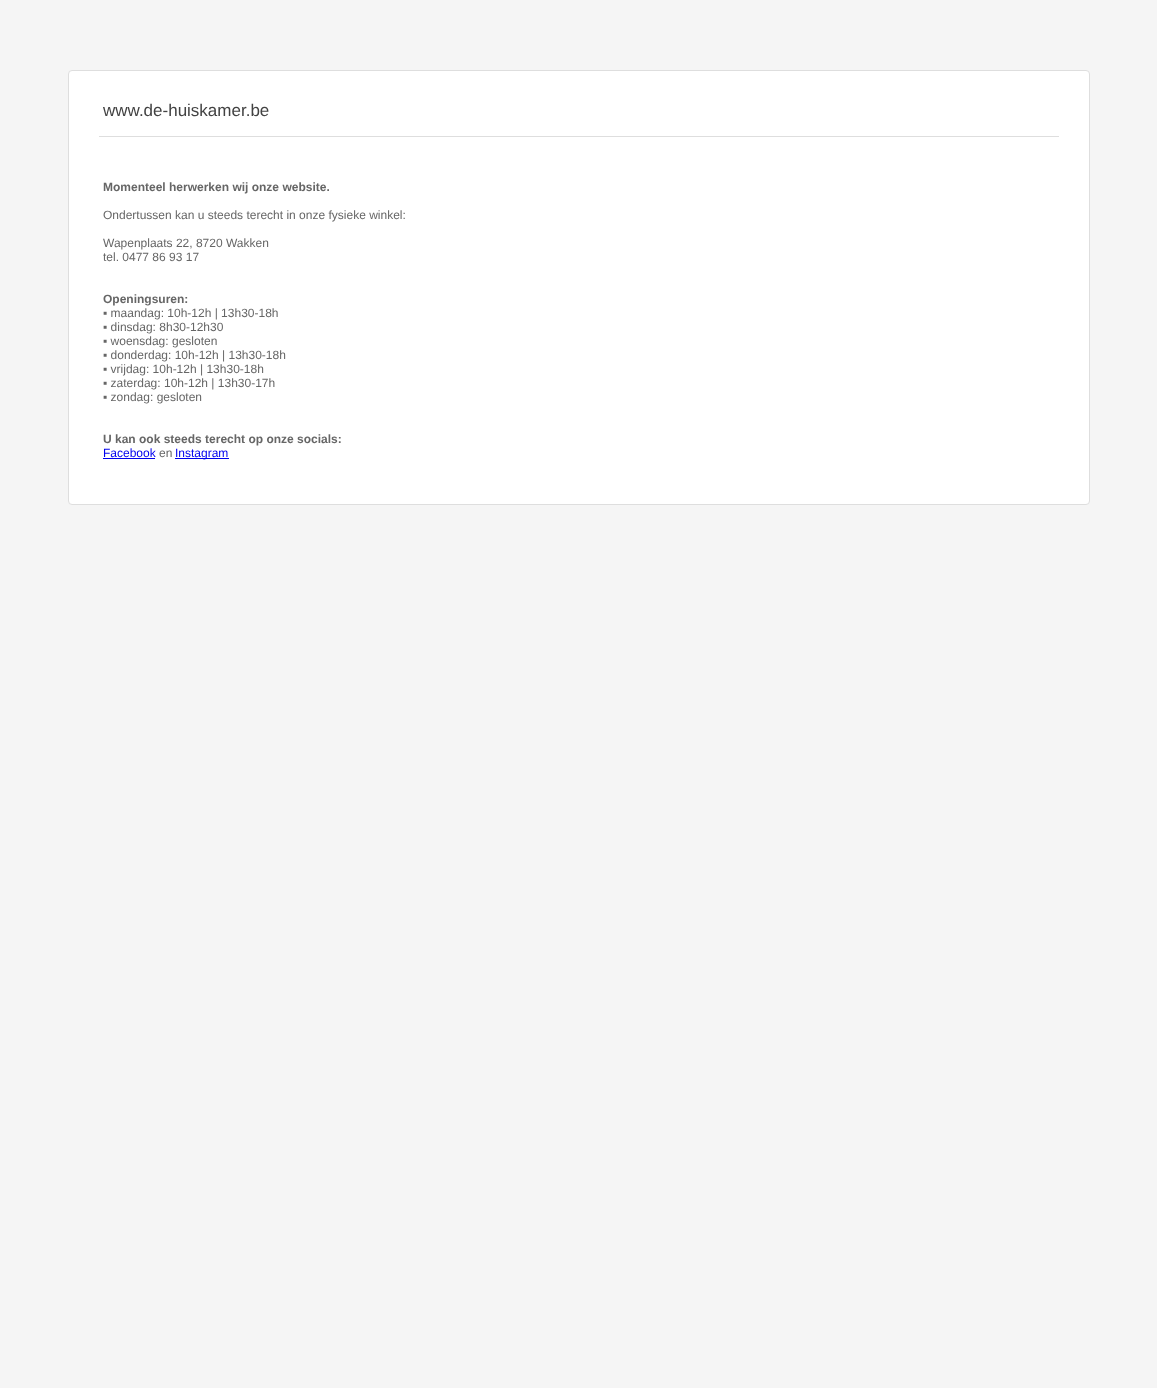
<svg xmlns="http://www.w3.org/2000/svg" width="1157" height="1388">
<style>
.a{font:17px Liberation Sans;fill:#424242}
.b{font:bold 12px Liberation Sans;fill:#666}
.c{font:12px Liberation Sans;fill:#666}
.d{font:12px Liberation Sans;fill:#00e}
</style>
<rect width="100%" height="100%" fill="#f5f5f5"/>
<rect fill="#fff" stroke="#dedede" x="68.5" y="70.5" width="1021" height="434" rx="3.5"/>
<path fill="#dedede" d="M99 136h960v1H99z"/>
<path fill="#00e" d="M103 458h52v1H103z"/>
<path fill="#00e" d="M175 458h54v1H175z"/>
<text class="a" x="103" y="116">www.de-huiskamer.be</text>
<text class="b" x="103" y="191">Momenteel herwerken wij onze website.</text>
<text class="c" x="103" y="219">Ondertussen kan u steeds terecht in onze fysieke winkel:</text>
<text class="c" x="103" y="247">Wapenplaats 22, 8720 Wakken</text>
<text class="c" x="103" y="261">tel. 0477 86 93 17</text>
<text class="b" x="103" y="303">Openingsuren:</text>
<text class="c" x="103" y="317">▪︎ maandag: 10h-12h | 13h30-18h</text>
<text class="c" x="103" y="331">▪︎ dinsdag: 8h30-12h30</text>
<text class="c" x="103" y="345">▪︎ woensdag: gesloten</text>
<text class="c" x="103" y="359">▪︎ donderdag: 10h-12h | 13h30-18h</text>
<text class="c" x="103" y="373">▪︎ vrijdag: 10h-12h | 13h30-18h</text>
<text class="c" x="103" y="387">▪︎ zaterdag: 10h-12h | 13h30-17h</text>
<text class="c" x="103" y="401">▪︎ zondag: gesloten</text>
<text class="b" x="103" y="443">U kan ook steeds terecht op onze socials:</text>
<text class="d" x="103" y="457">Facebook</text>
<text class="c" x="159" y="457">en</text>
<text class="d" x="175" y="457">Instagram</text>
</svg>
